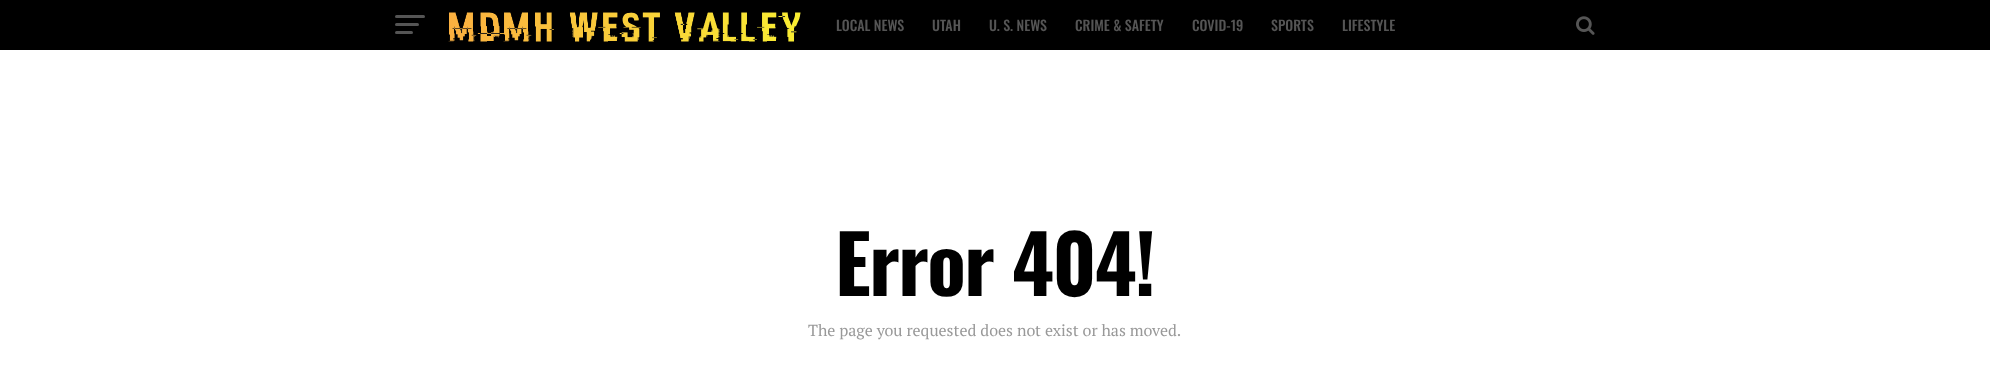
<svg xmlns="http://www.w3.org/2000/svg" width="1990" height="374">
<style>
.a{font:500 14px Oswald;fill:#555}
.b{font:bold 80px Oswald;letter-spacing:-1.6px;fill:#000}
.c{font:16px PT Serif;fill:#999}
</style>
<rect width="100%" height="100%" fill="#fff"/>
<path fill="#000" d="M0 0h1990v50H0z"/>
<rect fill="#555" x="395" y="15" width="30" height="3" rx="1.5"/>
<rect fill="#555" x="395" y="23" width="24" height="3" rx="1.5"/>
<rect fill="#555" x="395" y="31" width="18" height="3" rx="1.5"/>
<image href="1.png" x="448" y="12" width="353" height="30"/>
<image href="2.png" x="1576" y="16" width="19" height="19"/>
<text class="a" x="836" y="31">LOCAL NEWS</text>
<text class="a" x="932" y="31">UTAH</text>
<text class="a" x="989" y="31">U. S. NEWS</text>
<text class="a" x="1075" y="31">CRIME &amp; SAFETY</text>
<text class="a" x="1192" y="31">COVID-19</text>
<text class="a" x="1271" y="31">SPORTS</text>
<text class="a" x="1342" y="31">LIFESTYLE</text>
<text class="b" x="835" y="296">Error 404!</text>
<text class="c" x="808" y="336">The page you requested does not exist or has moved.</text>
</svg>
